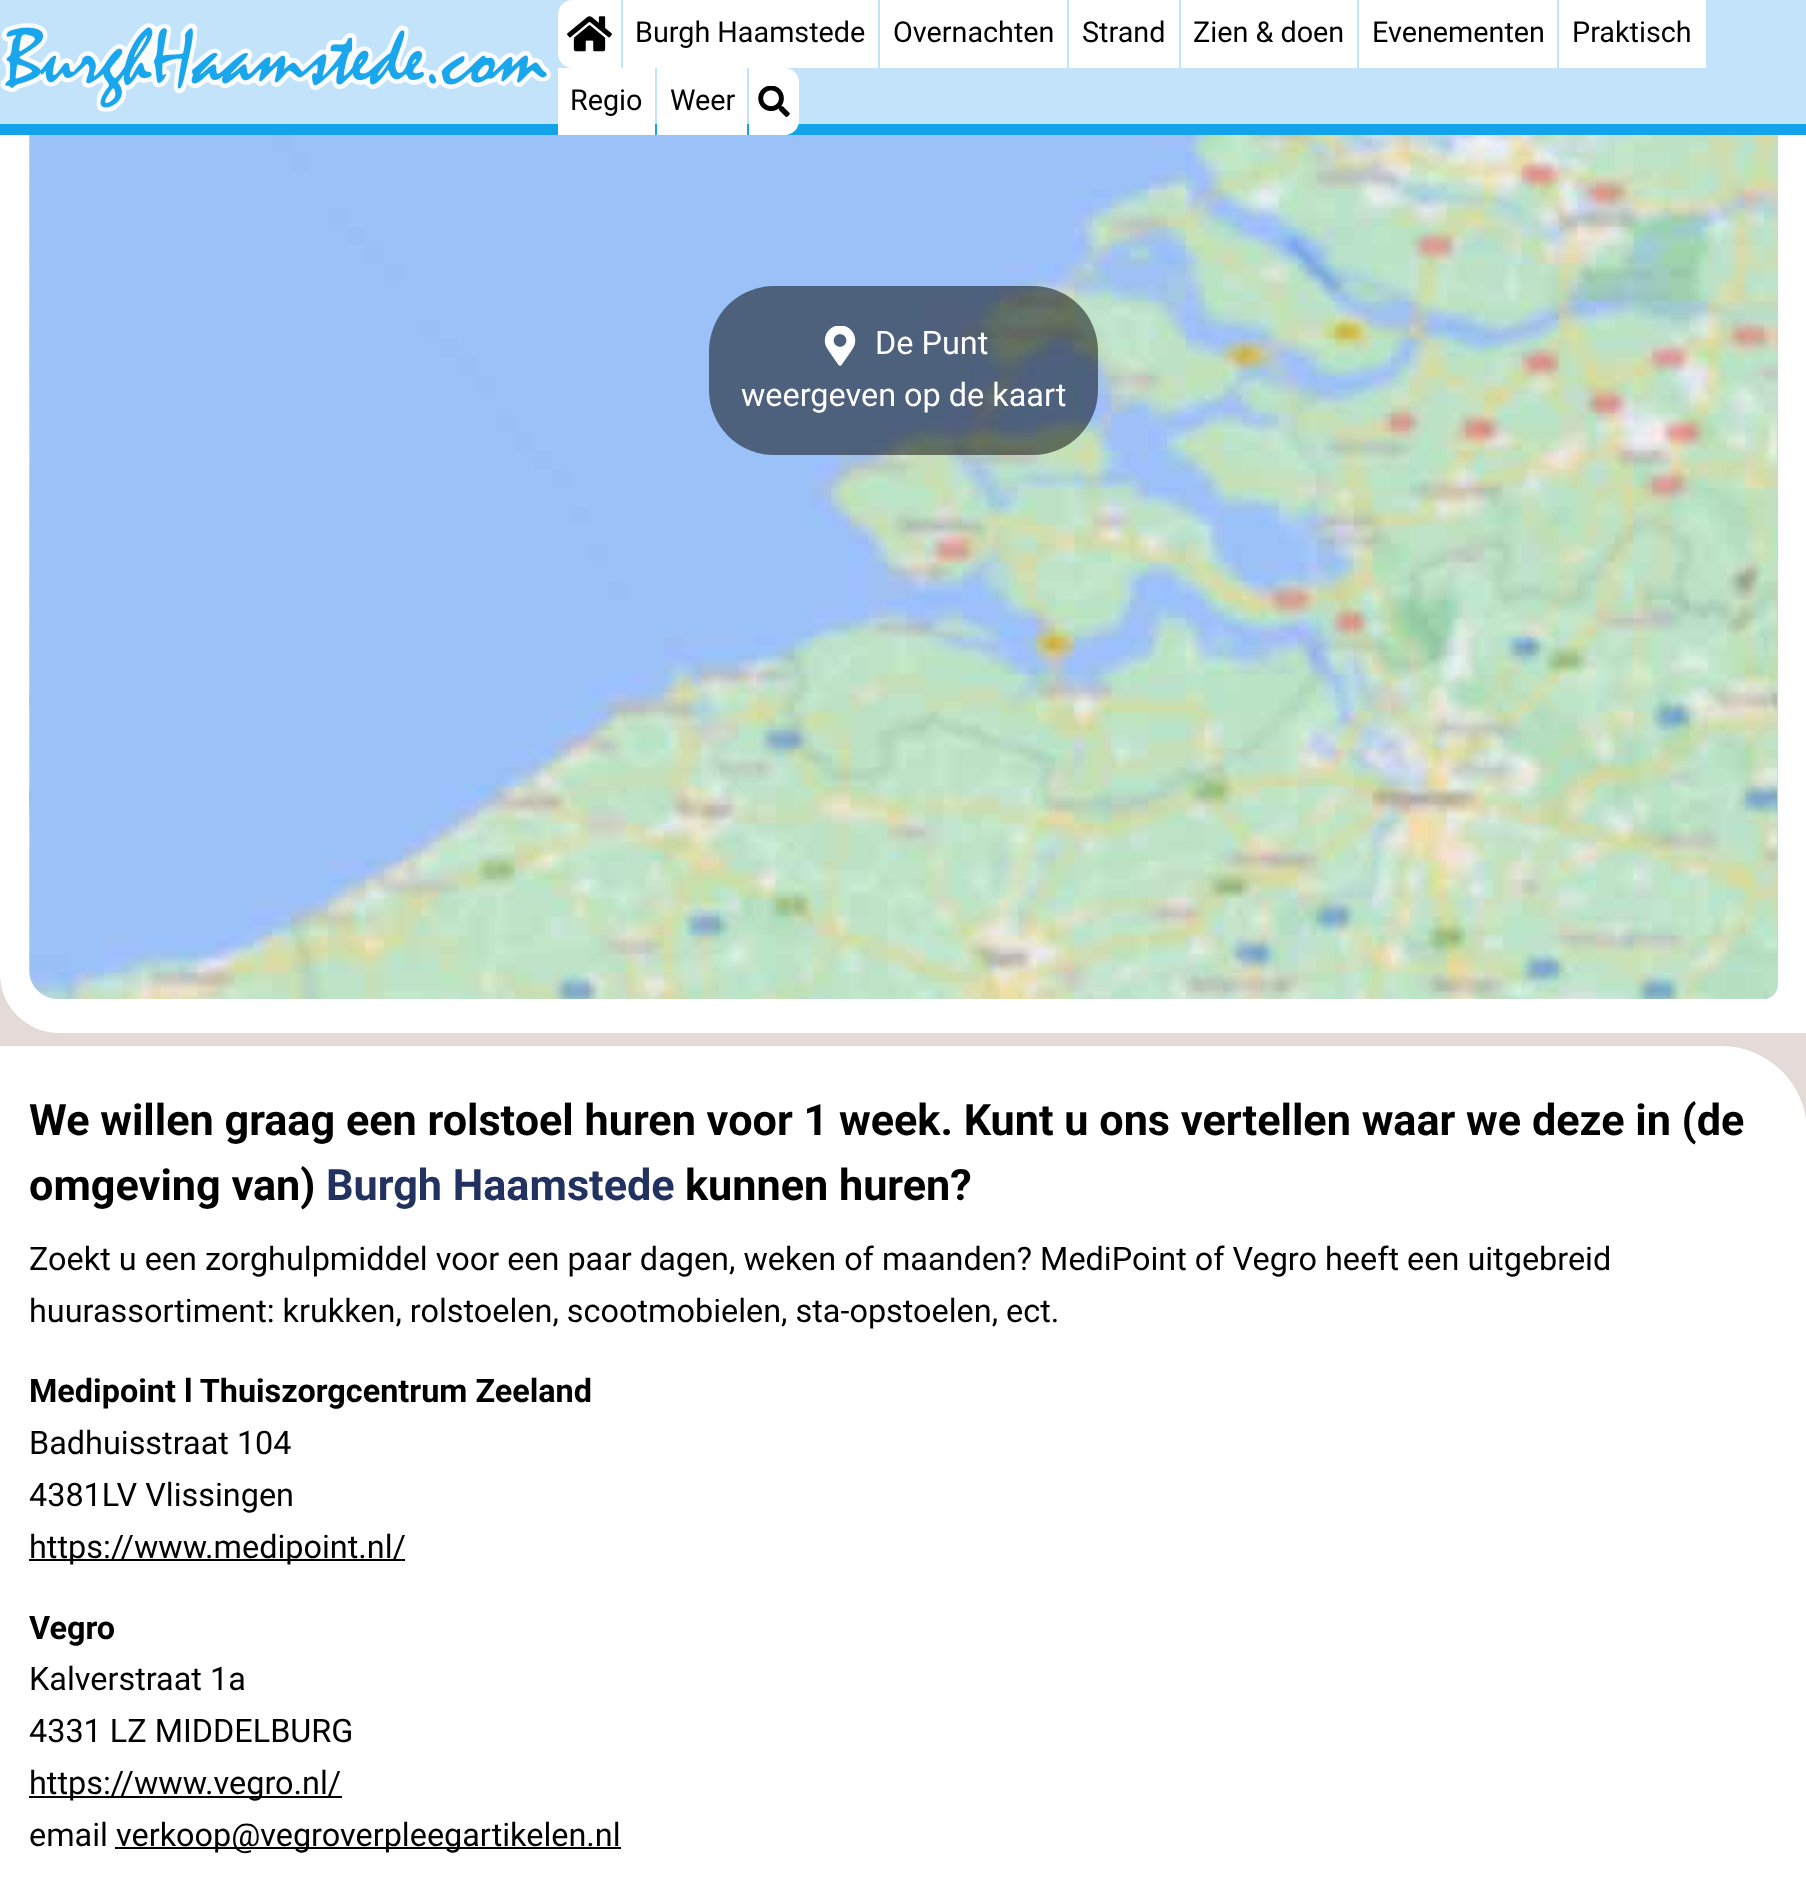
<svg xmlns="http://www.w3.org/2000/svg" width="1806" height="1886">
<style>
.a{font:28.75px Roboto;fill:#000}
.b{font:32.4px Roboto;fill:#fff}
.c{font:bold 43.2px Roboto;fill:#000}
.d{font:bold 43.2px Roboto;fill:#223260}
.e{font:32.4px Roboto;fill:#000}
.f{font:bold 32.4px Roboto;fill:#000}
</style>
<rect width="100%" height="100%" fill="#e4dad8"/>
<path fill="#fff" d="M0-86h1721c47.5 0 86 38.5 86 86v1033h-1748c-32.5 0-59-26.5-59-59z"/>
<path fill="#b8d9fe" d="M43-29h1721c7.5 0 14 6.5 14 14v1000c0 7.5-6.5 14-14 14h-1706c-16 0-29-13-29-29v-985c0-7.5 6.5-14 14-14z"/>
<path fill="#c2e3f9" d="M0 0h1806v124H0z"/>
<path fill="#12a3eb" d="M0 124h1806v11H0z"/>
<image href="1.png" x="0" y="23" width="551" height="89"/>
<path fill="#fff" d="M572 0h49v68h-49c-7.5 0-14-6.5-14-14v-40c0-7.5 6.5-14 14-14z"/>
<image href="2.png" x="567" y="16" width="45" height="36"/>
<path fill="#fff" d="M623 0h255v68H623z"/>
<path fill="#fff" d="M880 0h187v68H880z"/>
<path fill="#fff" d="M1069 0h110v68H1069z"/>
<path fill="#fff" d="M1181 0h176v68H1181z"/>
<path fill="#fff" d="M1359 0h198v68H1359z"/>
<path fill="#fff" d="M1559 0h147v68H1559z"/>
<path fill="#fff" d="M558 68h97v67H558z"/>
<path fill="#fff" d="M657 68h90v67H657z"/>
<path fill="#fff" d="M749 68h36c7.5 0 14 6.5 14 14v39c0 7.5-6.5 14-14 14h-36z"/>
<image href="3.png" x="758" y="86" width="32" height="31"/>
<image href="4.png" x="29" y="135" width="1749" height="864"/>
<rect fill="#00000080" x="709" y="286" width="389" height="169" rx="65"/>
<image href="5.png" x="824" y="326" width="32" height="40"/>
<path fill="#fff" d="M0 1046h1721c47.5 0 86 38.5 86 86v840h-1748c-32.5 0-59-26.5-59-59z"/>
<path fill="#000" d="M29 1559h376v2H29z"/>
<path fill="#000" d="M29 1796h313v2H29z"/>
<path fill="#000" d="M115 1847h506v2H115z"/>
<text class="a" x="635" y="42">Burgh Haamstede</text>
<text class="a" x="893" y="42">Overnachten</text>
<text class="a" x="1082" y="42">Strand</text>
<text class="a" x="1193" y="42">Zien &amp; doen</text>
<text class="a" x="1372" y="42">Evenementen</text>
<text class="a" x="1572" y="42">Praktisch</text>
<text class="a" x="570" y="110">Regio</text>
<text class="a" x="670" y="110">Weer</text>
<text class="b" x="875" y="354">De Punt</text>
<text class="b" x="741" y="406">weergeven op de kaart</text>
<text class="c" x="29" y="1135">We willen graag een rolstoel huren voor 1 week. Kunt u ons vertellen waar we deze in (de</text>
<text class="c" x="29" y="1200">omgeving van)</text>
<text class="d" x="326" y="1200">Burgh Haamstede</text>
<text class="c" x="685" y="1200">kunnen huren?</text>
<text class="e" x="29" y="1270">Zoekt u een zorghulpmiddel voor een paar dagen, weken of maanden? MediPoint of Vegro heeft een uitgebreid</text>
<text class="e" x="29" y="1322">huurassortiment: krukken, rolstoelen, scootmobielen, sta-opstoelen, ect.</text>
<text class="f" x="29" y="1402">Medipoint l Thuiszorgcentrum Zeeland</text>
<text class="e" x="29" y="1454">Badhuisstraat 104</text>
<text class="e" x="29" y="1506">4381LV Vlissingen</text>
<text class="e" x="29" y="1558">https://www.medipoint.nl/</text>
<text class="f" x="29" y="1639">Vegro</text>
<text class="e" x="29" y="1690">Kalverstraat 1a</text>
<text class="e" x="29" y="1742">4331 LZ MIDDELBURG</text>
<text class="e" x="29" y="1794">https://www.vegro.nl/</text>
<text class="e" x="29" y="1846">email</text>
<text class="e" x="116" y="1846">verkoop@vegroverpleegartikelen.nl</text>
</svg>
